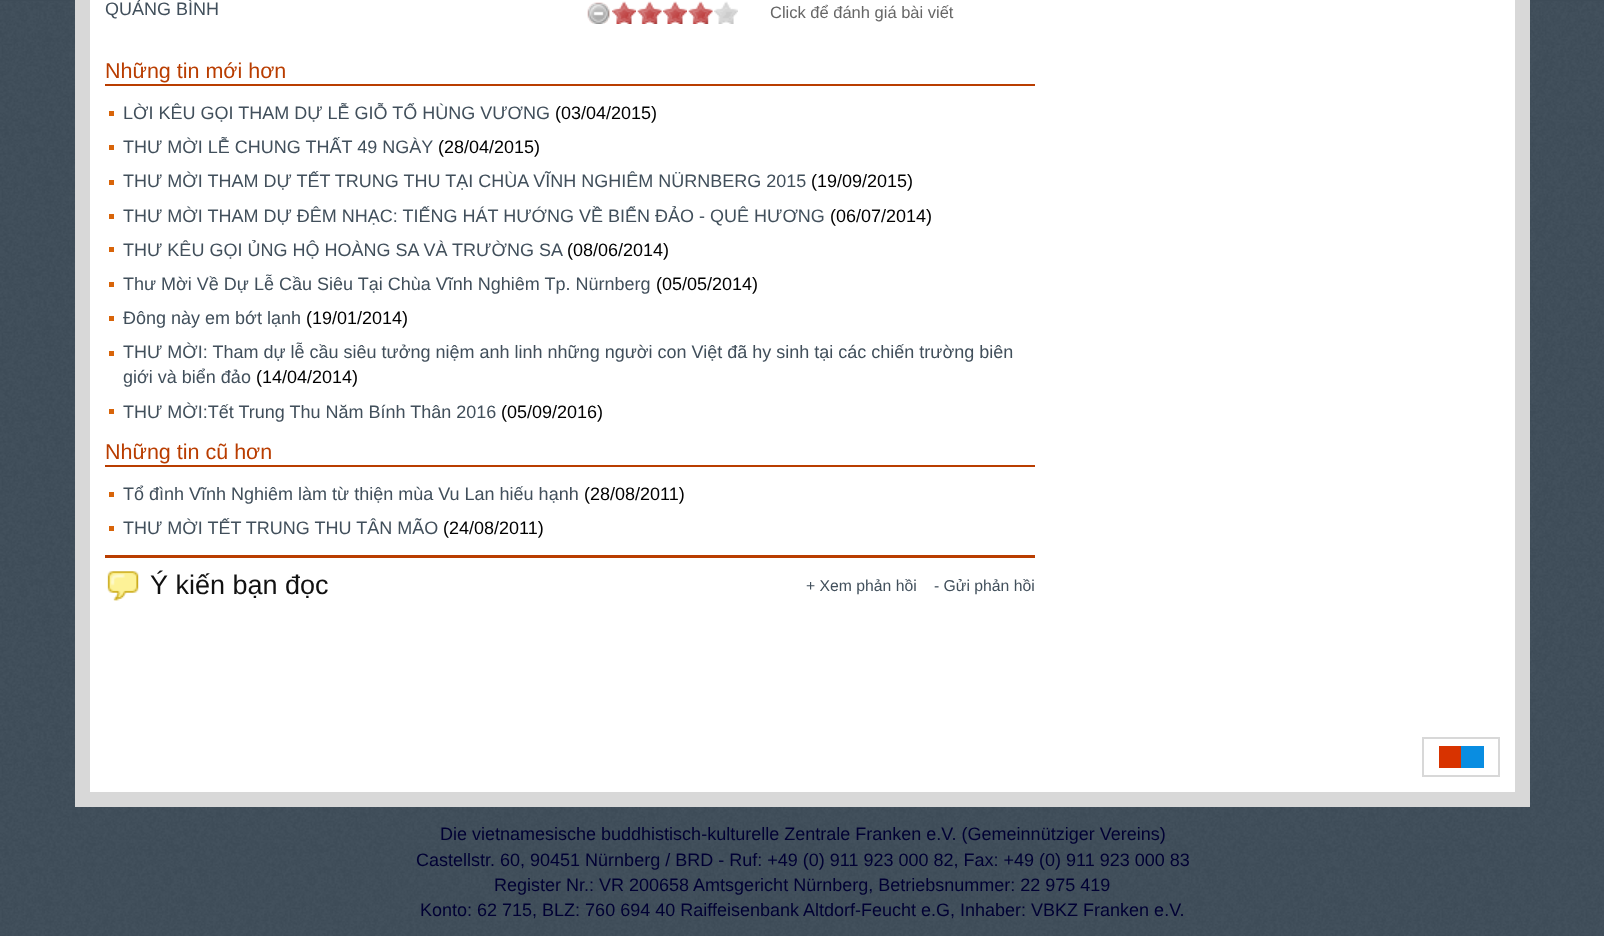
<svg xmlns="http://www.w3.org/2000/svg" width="1604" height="936">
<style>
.a{font:18px Liberation Sans;fill:#414f5b}
.b{font:16.5px Liberation Sans;fill:#666}
.c{font:21.5px Liberation Sans;fill:#b93d00}
.d{font:18px Liberation Sans;fill:#000}
.e{font:27px Liberation Sans;fill:#111}
.f{font:15.75px Liberation Sans;fill:#414f5b}
.g{font:18px Liberation Sans;fill:#003}
</style>
<rect width="100%" height="100%" fill="#3e4c58"/>
<image href="1.png" x="0" y="1" width="1604" height="935"/>
<path fill="#fff" stroke="#d8d8d8" stroke-width="15" d="M82.5 -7.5h1440v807H82.5z"/>
<image href="2.png" x="587" y="2" width="23" height="22"/>
<image href="3.png" x="587" y="2" width="23" height="22"/>
<image href="4.png" x="612" y="1" width="24" height="23"/>
<image href="5.png" x="637" y="1" width="25" height="23"/>
<image href="4.png" x="663" y="1" width="24" height="23"/>
<image href="5.png" x="688" y="1" width="25" height="23"/>
<image href="6.png" x="714" y="1" width="24" height="23"/>
<path fill="#b93d00" d="M105 84h930v2H105z"/>
<path fill="#d86409" d="M109 111h5v5H109z"/>
<path fill="#d86409" d="M109 145h5v5H109z"/>
<path fill="#d86409" d="M109 180h5v5H109z"/>
<path fill="#d86409" d="M109 214h5v5H109z"/>
<path fill="#d86409" d="M109 247h5v5H109z"/>
<path fill="#d86409" d="M109 282h5v5H109z"/>
<path fill="#d86409" d="M109 316h5v5H109z"/>
<path fill="#d86409" d="M109 351h5v5H109z"/>
<path fill="#d86409" d="M109 409h5v5H109z"/>
<path fill="#b93d00" d="M105 465h930v2H105z"/>
<path fill="#d86409" d="M109 492h5v5H109z"/>
<path fill="#d86409" d="M109 526h5v5H109z"/>
<path fill="#b93d00" d="M105 555h930v3H105z"/>
<image href="7.png" x="107" y="571" width="32" height="30"/>
<path fill="none" stroke="#d8d8d8" stroke-width="2" d="M1423 738h76v38H1423z"/>
<path fill="#d83300" d="M1439 746h22v22H1439z"/>
<path fill="#098de1" d="M1461 746h23v22H1461z"/>
<text class="a" x="105" y="15">QUẢNG BÌNH</text>
<text class="b" x="770" y="18">Click để đánh giá bài viết</text>
<text class="c" x="105" y="78">Những tin mới hơn</text>
<text class="a" x="123" y="119">LỜI KÊU GỌI THAM DỰ LỄ GIỖ TỔ HÙNG VƯƠNG</text>
<text class="d" x="555" y="119">(03/04/2015)</text>
<text class="a" x="123" y="153">THƯ MỜI LỄ CHUNG THẤT 49 NGÀY</text>
<text class="d" x="438" y="153">(28/04/2015)</text>
<text class="a" x="123" y="187">THƯ MỜI THAM DỰ TẾT TRUNG THU TẠI CHÙA VĨNH NGHIÊM NÜRNBERG 2015</text>
<text class="d" x="811" y="187">(19/09/2015)</text>
<text class="a" x="123" y="222">THƯ MỜI THAM DỰ ĐÊM NHẠC: TIẾNG HÁT HƯỚNG VỀ BIỂN ĐẢO - QUÊ HƯƠNG</text>
<text class="d" x="830" y="222">(06/07/2014)</text>
<text class="a" x="123" y="256">THƯ KÊU GỌI ỦNG HỘ HOÀNG SA VÀ TRƯỜNG SA</text>
<text class="d" x="567" y="256">(08/06/2014)</text>
<text class="a" x="123" y="290">Thư Mời Về Dự Lễ Cầu Siêu Tại Chùa Vĩnh Nghiêm Tp. Nürnberg</text>
<text class="d" x="656" y="290">(05/05/2014)</text>
<text class="a" x="123" y="324">Đông này em bớt lạnh</text>
<text class="d" x="306" y="324">(19/01/2014)</text>
<text class="a" x="123" y="358">THƯ MỜI: Tham dự lễ cầu siêu tưởng niệm anh linh những người con Việt đã hy sinh tại các chiến trường biên</text>
<text class="a" x="123" y="383">giới và biển đảo</text>
<text class="d" x="256" y="383">(14/04/2014)</text>
<text class="a" x="123" y="418">THƯ MỜI:Tết Trung Thu Năm Bính Thân 2016</text>
<text class="d" x="501" y="418">(05/09/2016)</text>
<text class="c" x="105" y="459">Những tin cũ hơn</text>
<text class="a" x="123" y="500">Tổ đình Vĩnh Nghiêm làm từ thiện mùa Vu Lan hiếu hạnh</text>
<text class="d" x="584" y="500">(28/08/2011)</text>
<text class="a" x="123" y="534">THƯ MỜI TẾT TRUNG THU TÂN MÃO</text>
<text class="d" x="443" y="534">(24/08/2011)</text>
<text class="e" x="150" y="594">Ý kiến bạn đọc</text>
<text class="f" x="806" y="591">+ Xem phản hồi</text>
<text class="f" x="934" y="591">- Gửi phản hồi</text>
<text class="g" x="440" y="840">Die vietnamesische buddhistisch-kulturelle Zentrale Franken e.V. (Gemeinnütziger Vereins)</text>
<text class="g" x="416" y="866">Castellstr. 60, 90451 Nürnberg / BRD - Ruf: +49 (0) 911 923 000 82, Fax: +49 (0) 911 923 000 83</text>
<text class="g" x="494" y="891">Register Nr.: VR 200658 Amtsgericht Nürnberg, Betriebsnummer: 22 975 419</text>
<text class="g" x="420" y="916">Konto: 62 715, BLZ: 760 694 40 Raiffeisenbank Altdorf-Feucht e.G, Inhaber: VBKZ Franken e.V.</text>
</svg>
